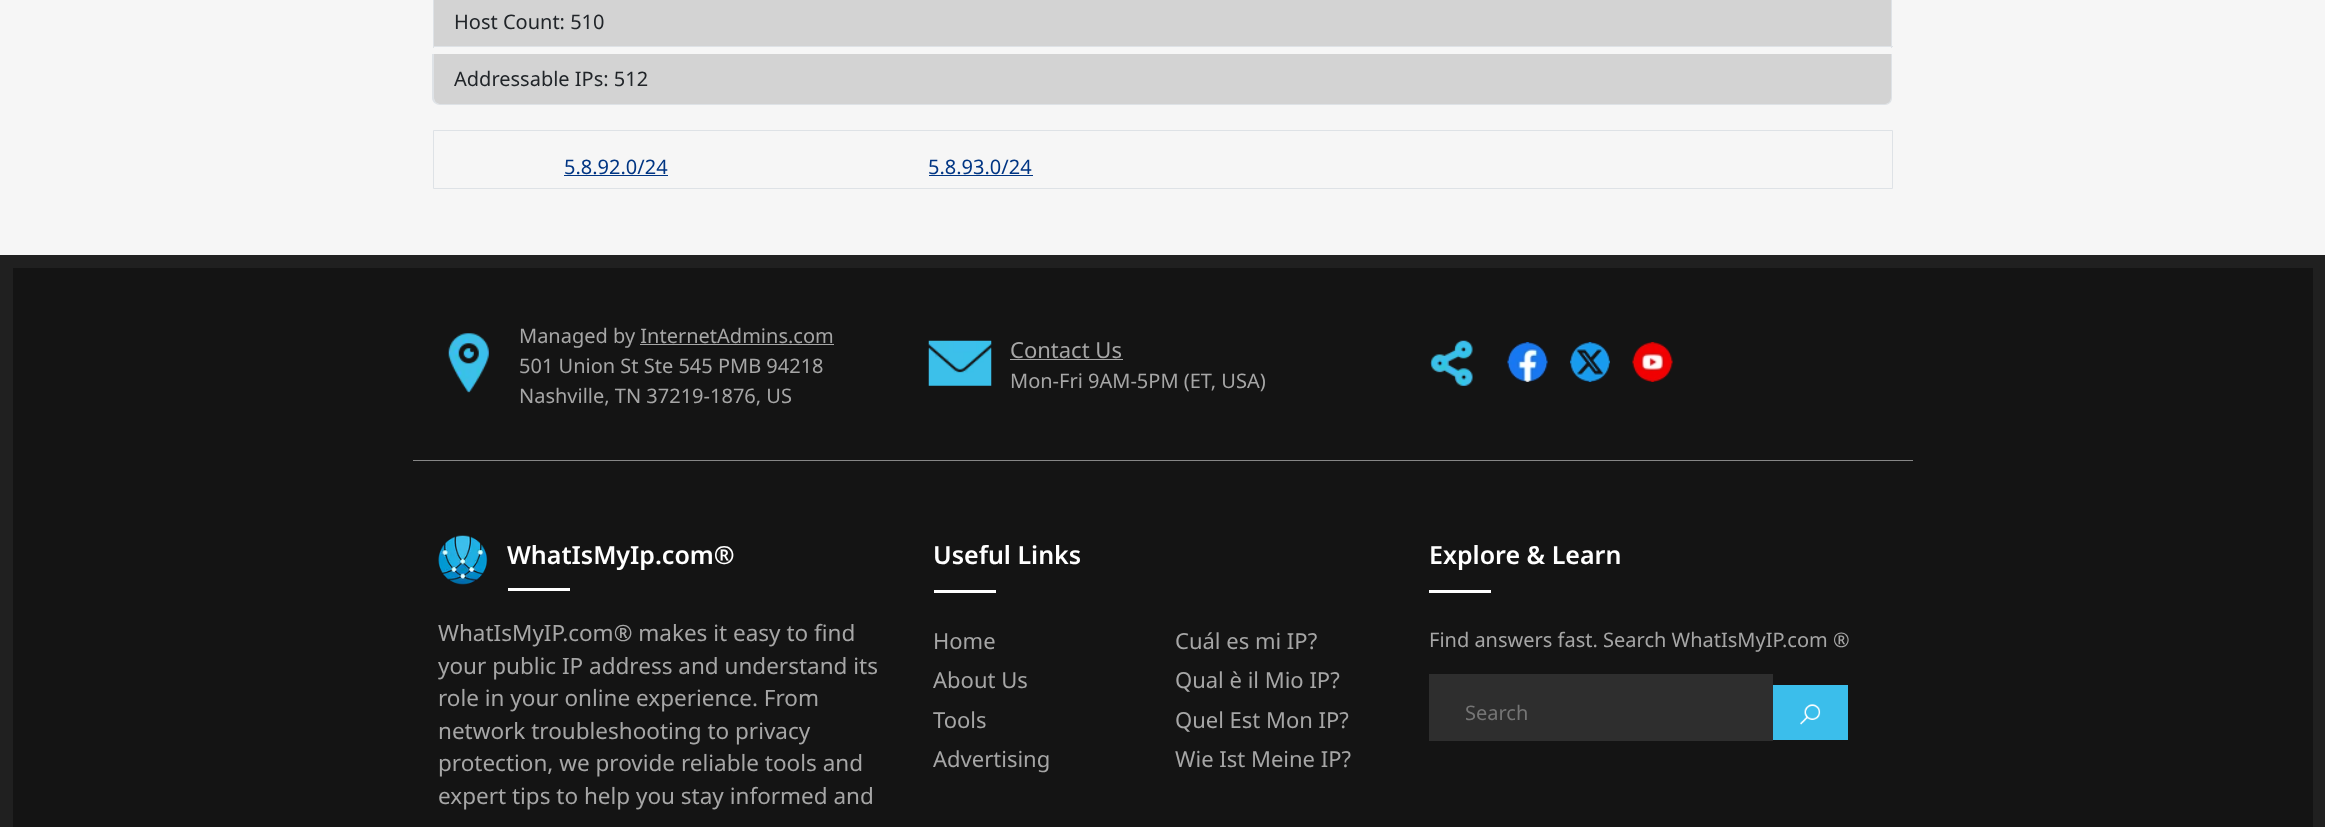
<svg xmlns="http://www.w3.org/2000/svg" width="2325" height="827">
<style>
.a{font:20px Noto Sans;fill:#212529}
.b{font:20px Noto Sans;fill:#003583}
.c{font:20px Noto Sans;fill:#a6a6a6}
.d{font:22px Noto Sans;fill:#a6a6a6}
.e{font:600 25px Noto Sans;fill:#fff}
.f{font:22.5px Noto Sans;fill:#a6a6a6}
.g{font:20px Noto Sans;fill:#757575}
</style>
<rect width="100%" height="100%" fill="#f6f6f6"/>
<path fill="#d3d3d3" d="M434 0h1457v46H434z"/>
<path fill="#dee2e6" d="M1891 0h1v48H1891z"/>
<path fill="#dee2e6" d="M433 46h1460v1H433z"/>
<path fill="#dee2e6" d="M433 0h1v48H433z"/>
<path fill="#d3d3d3" d="M434 54h1457v44c0 3.5-2.5 6-6 6h-1445c-3.5 0-6-2.5-6-6z"/>
<path fill="#dee2e6" fill-rule="evenodd" d="M432 54h1460v44c0 4-3 7-7 7h-1445c-4 0-8-3-8-7zm2 0h1457v44c0 3-3 6-6 6h-1445c-3 0-6-3-6-6z"/>
<path fill="none" stroke="#dee2e6" d="M433.5 130.5h1459v58H433.5z"/>
<path fill="#003583" d="M564 175h104v1H564z"/>
<path fill="#003583" d="M929 175h104v1H929z"/>
<path fill="#202020" d="M0 255h2325v572H0z"/>
<path fill="#141414" d="M13 268h2300v559H13z"/>
<path fill="#878787" d="M413 460h1500v1H413z"/>
<image href="1.png" x="448" y="333" width="41" height="60"/>
<path fill="#a6a6a6" d="M640 344h194v1H640z"/>
<image href="2.png" x="928" y="340" width="64" height="46"/>
<path fill="#a6a6a6" d="M1010 359h113v1H1010z"/>
<image href="3.png" x="1430" y="340" width="43" height="46"/>
<image href="4.png" x="1507" y="342" width="41" height="40"/>
<image href="5.png" x="1570" y="342" width="40" height="40"/>
<image href="6.png" x="1632" y="342" width="41" height="40"/>
<image href="7.png" x="438" y="535" width="50" height="50"/>
<path fill="#fff" d="M508 588h62v3H508z"/>
<path fill="#fff" d="M934 590h62v3H934z"/>
<path fill="#fff" d="M1429 590h62v3H1429z"/>
<path fill="#2e2e2e" d="M1429 674h344v67H1429z"/>
<path fill="#3bbeeb" d="M1773 685h75v55H1773z"/>
<image href="8.png" x="1800" y="704" width="21" height="21"/>
<text class="a" x="454" y="29">Host Count: 510</text>
<text class="a" x="454" y="86">Addressable IPs: 512</text>
<text class="b" x="564" y="174">5.8.92.0/24</text>
<text class="b" x="928" y="174">5.8.93.0/24</text>
<text class="c" x="519" y="343">Managed by InternetAdmins.com</text>
<text class="c" x="519" y="373">501 Union St Ste 545 PMB 94218</text>
<text class="c" x="519" y="403">Nashville, TN 37219-1876, US</text>
<text class="d" x="1010" y="358">Contact Us</text>
<text class="c" x="1010" y="388">Mon-Fri 9AM-5PM (ET, USA)</text>
<text class="e" x="507" y="564">WhatIsMyIp.com®</text>
<text class="f" x="438" y="641">WhatIsMyIP.com® makes it easy to find</text>
<text class="f" x="438" y="674">your public IP address and understand its</text>
<text class="f" x="438" y="706">role in your online experience. From</text>
<text class="f" x="438" y="739">network troubleshooting to privacy</text>
<text class="f" x="438" y="771">protection, we provide reliable tools and</text>
<text class="f" x="438" y="804">expert tips to help you stay informed and</text>
<text class="e" x="933" y="564">Useful Links</text>
<text class="d" x="933" y="649">Home</text>
<text class="d" x="1175" y="649">Cuál es mi IP?</text>
<text class="d" x="933" y="688">About Us</text>
<text class="d" x="1175" y="688">Qual è il Mio IP?</text>
<text class="d" x="933" y="728">Tools</text>
<text class="d" x="1175" y="728">Quel Est Mon IP?</text>
<text class="d" x="933" y="767">Advertising</text>
<text class="d" x="1175" y="767">Wie Ist Meine IP?</text>
<text class="e" x="1429" y="564">Explore &amp; Learn</text>
<text class="c" x="1429" y="647">Find answers fast. Search WhatIsMyIP.com ®</text>
<text class="g" x="1465" y="720">Search</text>
</svg>
